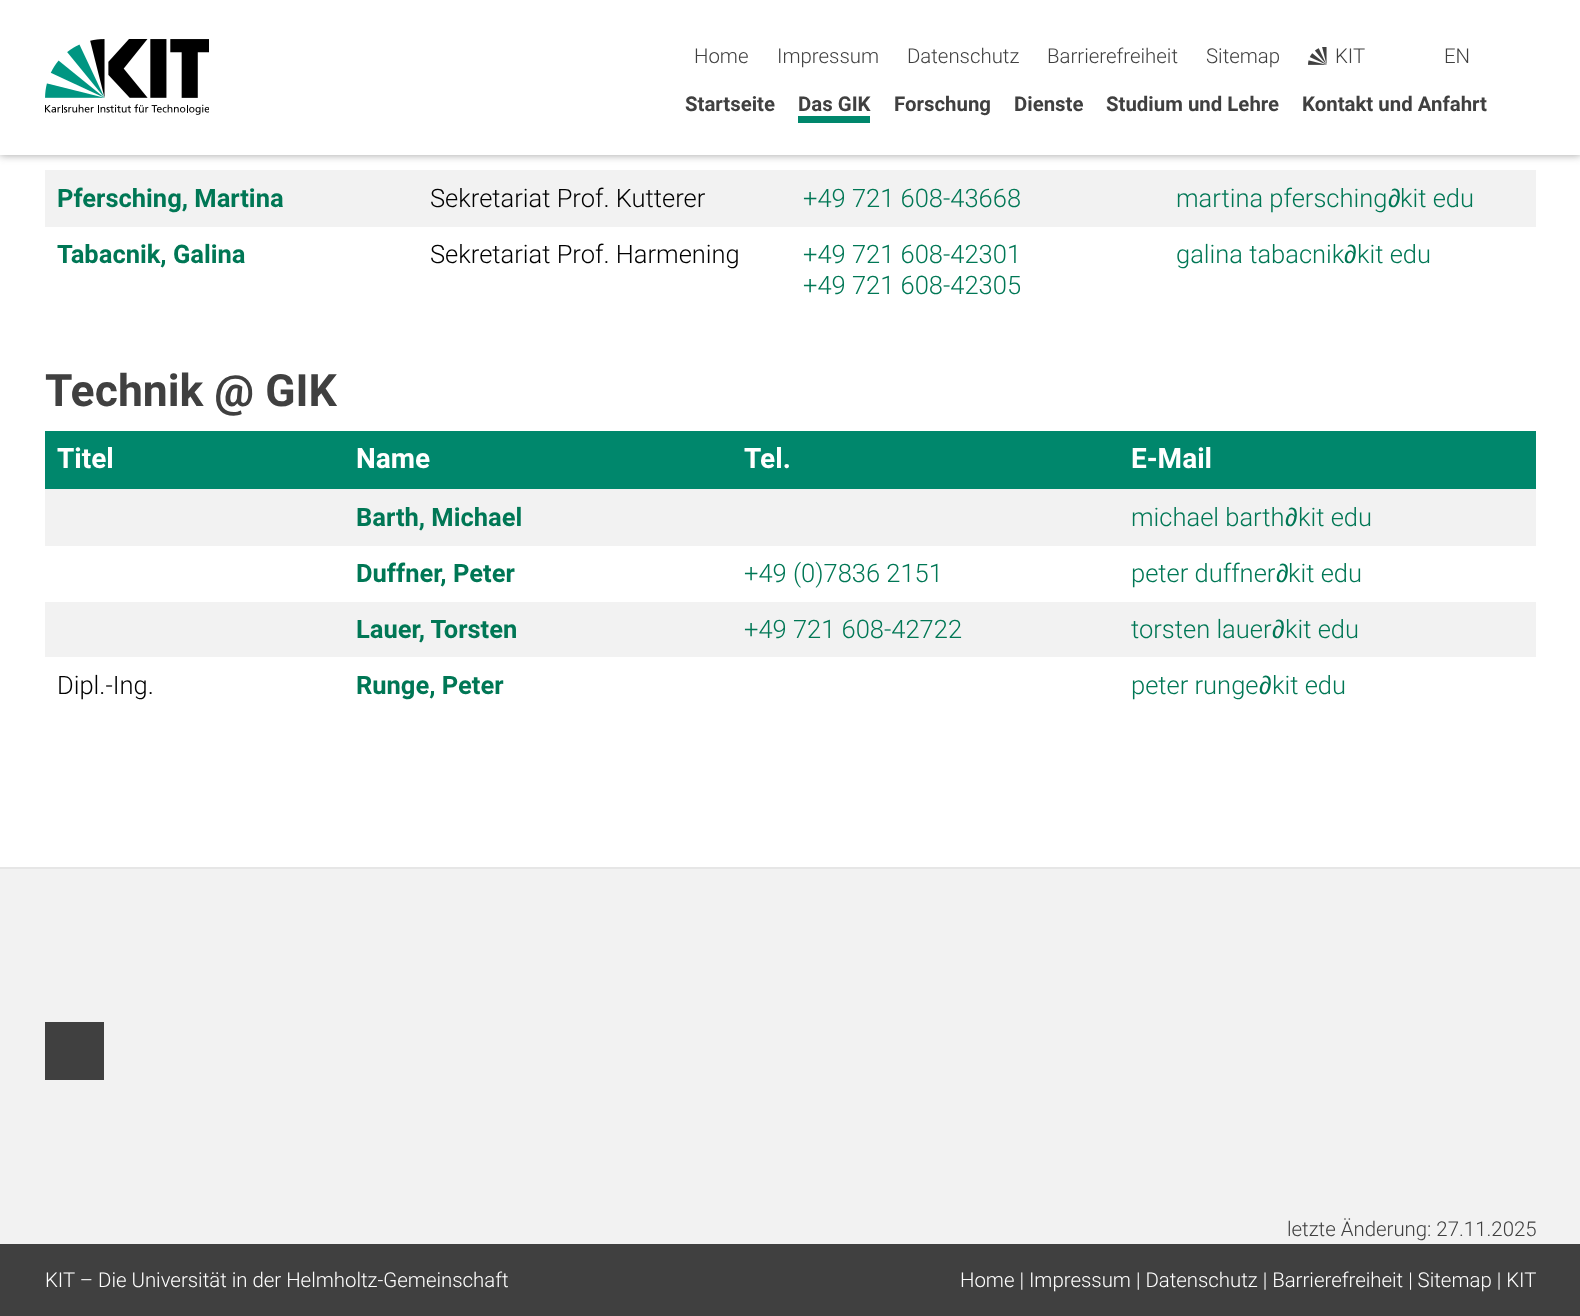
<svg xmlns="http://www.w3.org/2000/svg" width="1580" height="1316">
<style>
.a{font:300 20.4px Roboto;fill:#404040}
.b{font:bold 20.4px Roboto;fill:#404040}
.c{font:bold 25.5px Roboto;fill:#075}
.d{font:300 25.5px Roboto;fill:#000}
.e{font:300 25.5px Roboto;fill:#075}
.f{font:25.5px Liberation Sans;fill:#075}
.g{font:bold 44.5px Roboto;fill:#404040}
.h{font:bold 28px Roboto;fill:#fff}
.i{font:300 20.4px Roboto;fill:#fff}
</style>
<rect width="100%" height="100%" fill="#fff"/>
<path fill="#40404080" filter="blur(4px)" d="M0 0h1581v155H0z"/>
<path fill="#fff" d="M0 0h1580v155H0z"/>
<image href="1.png" x="45" y="39" width="164" height="76"/>
<image href="2.png" x="1308" y="47" width="19" height="18"/>
<path fill="#00876c" d="M798 116h72v7H798z"/>
<path fill="#f2f2f2" d="M45 170h1491v57H45z"/>
<path fill="#00876c" d="M45 431h1491v58H45z"/>
<path fill="#f2f2f2" d="M45 489h1491v57H45z"/>
<path fill="#f2f2f2" d="M45 602h1491v55H45z"/>
<path fill="#f2f2f2" d="M0 869h1580v375H0z"/>
<path fill="#e6e6e6" d="M0 867h1580v2H0z"/>
<path fill="#404040" d="M45 1022h59v58H45z"/>
<path fill="#404040" d="M0 1244h1580v72H0z"/>
<text class="a" x="694" y="63">Home</text>
<text class="a" x="777" y="63">Impressum</text>
<text class="a" x="907" y="63">Datenschutz</text>
<text class="a" x="1047" y="63">Barrierefreiheit</text>
<text class="a" x="1206" y="63">Sitemap</text>
<text class="a" x="1335" y="63">KIT</text>
<text class="a" x="1444" y="63">EN</text>
<text class="b" x="685" y="111">Startseite</text>
<text class="b" x="798" y="111">Das GIK</text>
<text class="b" x="894" y="111">Forschung</text>
<text class="b" x="1014" y="111">Dienste</text>
<text class="b" x="1106" y="111">Studium und Lehre</text>
<text class="b" x="1302" y="111">Kontakt und Anfahrt</text>
<text class="c" x="57" y="207">Pfersching, Martina</text>
<text class="d" x="430" y="207">Sekretariat Prof. Kutterer</text>
<text class="e" x="803" y="207">+49 721 608-43668</text>
<text class="e" x="1176" y="207">martina pfersching</text>
<text class="f" x="1388" y="207">∂</text>
<text class="e" x="1400" y="207">kit edu</text>
<text class="c" x="57" y="263">Tabacnik, Galina</text>
<text class="d" x="430" y="263">Sekretariat Prof. Harmening</text>
<text class="e" x="803" y="263">+49 721 608-42301</text>
<text class="e" x="803" y="294">+49 721 608-42305</text>
<text class="e" x="1176" y="263">galina tabacnik</text>
<text class="f" x="1344" y="263">∂</text>
<text class="e" x="1357" y="263">kit edu</text>
<text class="g" x="45" y="406">Technik @ GIK</text>
<text class="h" x="57" y="468">Titel</text>
<text class="h" x="356" y="468">Name</text>
<text class="h" x="744" y="468">Tel.</text>
<text class="h" x="1131" y="468">E-Mail</text>
<text class="c" x="356" y="526">Barth, Michael</text>
<text class="e" x="1131" y="526">michael barth</text>
<text class="f" x="1285" y="526">∂</text>
<text class="e" x="1298" y="526">kit edu</text>
<text class="c" x="356" y="582">Duffner, Peter</text>
<text class="e" x="744" y="582">+49 (0)7836 2151</text>
<text class="e" x="1131" y="582">peter duffner</text>
<text class="f" x="1276" y="582">∂</text>
<text class="e" x="1288" y="582">kit edu</text>
<text class="c" x="356" y="638">Lauer, Torsten</text>
<text class="e" x="744" y="638">+49 721 608-42722</text>
<text class="e" x="1131" y="638">torsten lauer</text>
<text class="f" x="1272" y="638">∂</text>
<text class="e" x="1285" y="638">kit edu</text>
<text class="d" x="57" y="694">Dipl.-Ing.</text>
<text class="c" x="356" y="694">Runge, Peter</text>
<text class="e" x="1131" y="694">peter runge</text>
<text class="f" x="1259" y="694">∂</text>
<text class="e" x="1272" y="694">kit edu</text>
<text class="a" x="1287" y="1236">letzte Änderung: 27.11.2025</text>
<text class="i" x="45" y="1287">KIT – Die Universität in der Helmholtz-Gemeinschaft</text>
<text class="i" x="960" y="1287">Home | Impressum | Datenschutz | Barrierefreiheit | Sitemap | KIT</text>
</svg>
